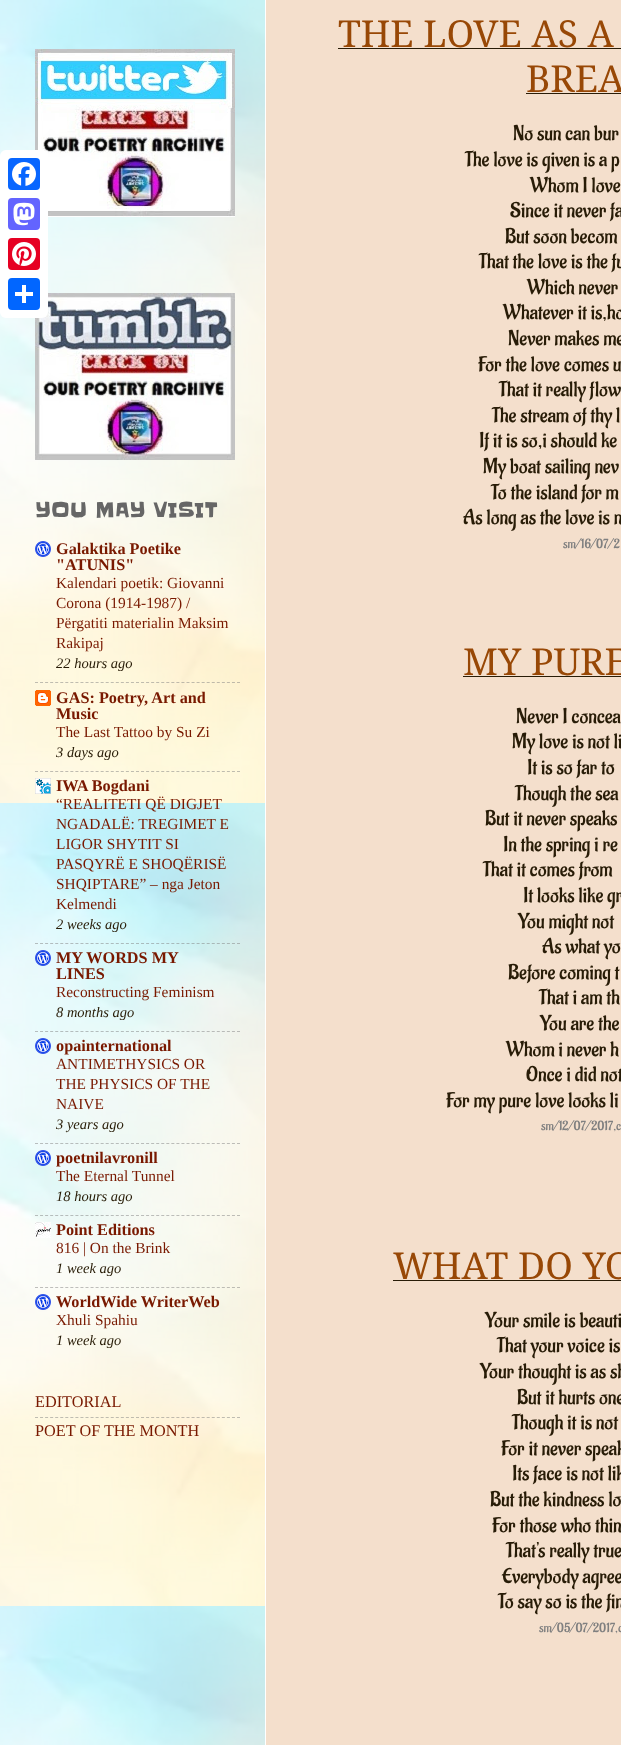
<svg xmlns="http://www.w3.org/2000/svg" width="621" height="1745">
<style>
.a{font:20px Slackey;fill:#666}
.b{font:bold 16.25px Liberation Serif;fill:#791900}
.c{font:15.4px Liberation Serif;fill:#791900}
.d{font:italic 14.5px Liberation Serif;fill:#281c07}
.e{font:16.25px Liberation Serif;fill:#791900}
.f{font:37.25px Noto Serif;fill:#984806}
.g{font:21.25px Aladin;fill:#281c07}
.h{font:13.25px Aladin;fill:#808080}
</style>
<rect width="100%" height="100%" fill="#fff"/>
<image href="1.png" x="0" y="0" width="265" height="1745"/>
<image href="5.png" x="35" y="49" width="200" height="168"/>
<image href="6.png" x="35" y="293" width="200" height="167"/>
<rect fill="#fff" y="150" width="48" height="168" rx="6"/>
<rect fill="#0866ff" x="8" y="158" width="32" height="32" rx="4"/>
<image href="2.png" x="12" y="162" width="24" height="24"/>
<rect fill="#6364ff" x="8" y="198" width="32" height="32" rx="4"/>
<image href="3.png" x="13" y="202" width="22" height="24"/>
<rect fill="#e60023" x="8" y="238" width="32" height="32" rx="4"/>
<image href="4.png" x="12" y="242" width="24" height="24"/>
<rect fill="#0166ff" x="8" y="278" width="32" height="32" rx="4"/>
<path fill="#fff" d="M22 285h4v18H22z"/>
<path fill="#fff" d="M15 292h18v4H15z"/>
<image href="7.png" x="35" y="541" width="16" height="16"/>
<path fill="none" stroke="#80808080" stroke-dasharray="3 2.05" d="M35 682.5h205"/>
<image href="8.png" x="35" y="690" width="16" height="16"/>
<path fill="none" stroke="#80808080" stroke-dasharray="3 2.05" d="M35 771.5h205"/>
<image href="9.png" x="35" y="778" width="16" height="16"/>
<path fill="none" stroke="#80808080" stroke-dasharray="3 2.05" d="M35 943.5h205"/>
<image href="10.png" x="35" y="950" width="16" height="16"/>
<path fill="none" stroke="#80808080" stroke-dasharray="3 2.05" d="M35 1031.5h205"/>
<image href="11.png" x="35" y="1038" width="16" height="16"/>
<path fill="none" stroke="#80808080" stroke-dasharray="3 2.05" d="M35 1143.5h205"/>
<image href="12.png" x="35" y="1150" width="16" height="16"/>
<path fill="none" stroke="#80808080" stroke-dasharray="3 2.05" d="M35 1215.5h205"/>
<image href="13.png" x="35" y="1222" width="16" height="16"/>
<path fill="none" stroke="#80808080" stroke-dasharray="3 2.05" d="M35 1287.5h205"/>
<image href="14.png" x="35" y="1294" width="16" height="16"/>
<path fill="none" stroke="#80808080" stroke-dasharray="3 2.05" d="M35 1417.5h205"/>
<path fill="#f4dfcc" d="M266 0h355v1745H266z"/>
<path fill="#281c07" d="M338 48h283v1H338z"/>
<path fill="#281c07" d="M526 93h95v1H526z"/>
<path fill="#281c07" d="M463 676h158v1H463z"/>
<path fill="#281c07" d="M393 1280h228v1H393z"/>
<text class="a" x="35" y="517">YOU MAY VISIT</text>
<text class="b" x="56" y="554">Galaktika Poetike</text>
<text class="b" x="56" y="570">"ATUNIS"</text>
<text class="c" x="56" y="588">Kalendari poetik: Giovanni</text>
<text class="c" x="56" y="608">Corona (1914-1987) /</text>
<text class="c" x="56" y="628">Përgatiti materialin Maksim</text>
<text class="c" x="56" y="648">Rakipaj</text>
<text class="d" x="56" y="668">22 hours ago</text>
<text class="b" x="56" y="703">GAS: Poetry, Art and</text>
<text class="b" x="56" y="719">Music</text>
<text class="c" x="56" y="737">The Last Tattoo by Su Zi</text>
<text class="d" x="56" y="757">3 days ago</text>
<text class="b" x="56" y="791">IWA Bogdani</text>
<text class="c" x="56" y="809">“REALITETI QË DIGJET</text>
<text class="c" x="56" y="829">NGADALË: TREGIMET E</text>
<text class="c" x="56" y="849">LIGOR SHYTIT SI</text>
<text class="c" x="56" y="869">PASQYRË E SHOQËRISË</text>
<text class="c" x="56" y="889">SHQIPTARE” – nga Jeton</text>
<text class="c" x="56" y="909">Kelmendi</text>
<text class="d" x="56" y="929">2 weeks ago</text>
<text class="b" x="56" y="963">MY WORDS MY</text>
<text class="b" x="56" y="979">LINES</text>
<text class="c" x="56" y="997">Reconstructing Feminism</text>
<text class="d" x="56" y="1017">8 months ago</text>
<text class="b" x="56" y="1051">opainternational</text>
<text class="c" x="56" y="1069">ANTIMETHYSICS OR</text>
<text class="c" x="56" y="1089">THE PHYSICS OF THE</text>
<text class="c" x="56" y="1109">NAIVE</text>
<text class="d" x="56" y="1129">3 years ago</text>
<text class="b" x="56" y="1163">poetnilavronill</text>
<text class="c" x="56" y="1181">The Eternal Tunnel</text>
<text class="d" x="56" y="1201">18 hours ago</text>
<text class="b" x="56" y="1235">Point Editions</text>
<text class="c" x="56" y="1253">816 | On the Brink</text>
<text class="d" x="56" y="1273">1 week ago</text>
<text class="b" x="56" y="1307">WorldWide WriterWeb</text>
<text class="c" x="56" y="1325">Xhuli Spahiu</text>
<text class="d" x="56" y="1345">1 week ago</text>
<text class="e" x="35" y="1407">EDITORIAL</text>
<text class="e" x="35" y="1436">POET OF THE MONTH</text>
<text class="f" x="338" y="47">THE LOVE AS A</text>
<text class="f" x="526" y="92">BREA</text>
<text class="g" x="513" y="140">No sun can bur</text>
<text class="g" x="465" y="166">The love is given is a p</text>
<text class="g" x="530" y="192">Whom I love</text>
<text class="g" x="510" y="217">Since it never fa</text>
<text class="g" x="505" y="243">But soon becom</text>
<text class="g" x="479" y="268">That the love is the fu</text>
<text class="g" x="527" y="294">Which never</text>
<text class="g" x="503" y="319">Whatever it is,ho</text>
<text class="g" x="508" y="345">Never makes me</text>
<text class="g" x="478" y="371">For the love comes u</text>
<text class="g" x="499" y="396">That it really flow</text>
<text class="g" x="492" y="422">The stream of thy l</text>
<text class="g" x="479" y="447">If it is so,i should ke</text>
<text class="g" x="483" y="473">My boat sailing nev</text>
<text class="g" x="491" y="499">To the island for m</text>
<text class="g" x="463" y="524">As long as the love is n</text>
<text class="h" x="563" y="548">sm/16/07/2</text>
<text class="f" x="463" y="675">MY PURE</text>
<text class="g" x="516" y="723">Never I concea</text>
<text class="g" x="512" y="748">My love is not li</text>
<text class="g" x="527" y="774">It is so far to</text>
<text class="g" x="515" y="800">Though the sea</text>
<text class="g" x="485" y="825">But it never speaks</text>
<text class="g" x="503" y="851">In the spring i re</text>
<text class="g" x="483" y="876">That it comes from</text>
<text class="g" x="523" y="902">It looks like gr</text>
<text class="g" x="518" y="928">You might not</text>
<text class="g" x="542" y="953">As what yo</text>
<text class="g" x="508" y="979">Before coming t</text>
<text class="g" x="539" y="1004">That i am th</text>
<text class="g" x="540" y="1030">You are the</text>
<text class="g" x="506" y="1056">Whom i never h</text>
<text class="g" x="526" y="1081">Once i did not</text>
<text class="g" x="446" y="1107">For my pure love looks li</text>
<text class="h" x="541" y="1130">sm/12/07/2017,c</text>
<text class="f" x="393" y="1279">WHAT DO YO</text>
<text class="g" x="485" y="1327">Your smile is beauti</text>
<text class="g" x="497" y="1352">That your voice is</text>
<text class="g" x="480" y="1378">Your thought is as sh</text>
<text class="g" x="517" y="1404">But it hurts one</text>
<text class="g" x="512" y="1429">Though it is not</text>
<text class="g" x="501" y="1455">For it never speak</text>
<text class="g" x="512" y="1480">Its face is not lik</text>
<text class="g" x="490" y="1506">But the kindness lo</text>
<text class="g" x="492" y="1532">For those who thin</text>
<text class="g" x="506" y="1557">That's really true</text>
<text class="g" x="502" y="1583">Everybody agree</text>
<text class="g" x="498" y="1608">To say so is the fin</text>
<text class="h" x="539" y="1632">sm/05/07/2017,c</text>
</svg>
